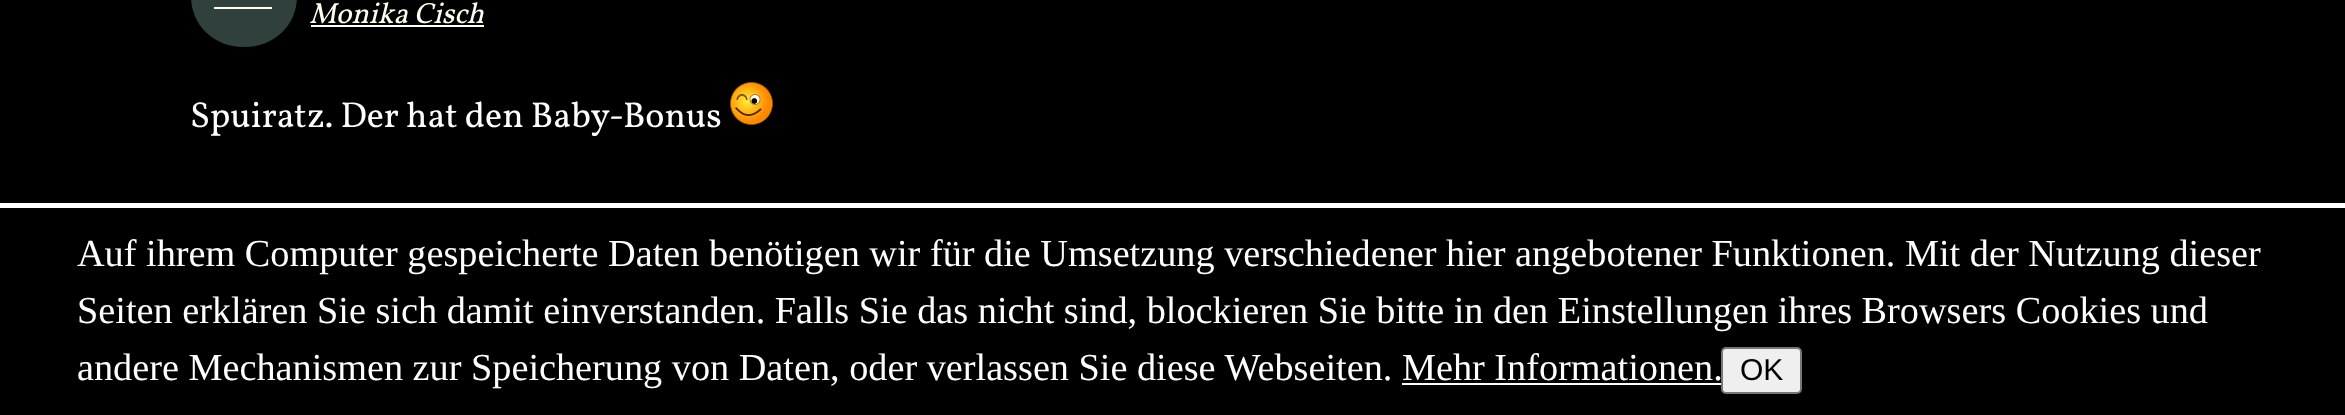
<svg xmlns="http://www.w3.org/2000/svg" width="2345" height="415">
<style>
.a{font:italic 29.25px Vollkorn;fill:#ffe}
.b{font:36px Vollkorn;fill:#fff}
.c{font:38.25px Liberation Serif;fill:#fff}
.d{font:30px Liberation Sans;fill:#000}
</style>
<rect width="100%" height="100%" fill="#000"/>
<rect fill="#30403c" x="191" y="-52" width="106" height="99" rx="52"/>
<path fill="#ffe" d="M214 7h58v2H214z"/>
<path fill="#ffe" d="M311 25h173v2H311z"/>
<image href="1.png" x="730" y="82" width="43" height="43"/>
<path fill="#fff" d="M0 203h2345v5H0z"/>
<rect fill="#efefef" stroke="#767676" stroke-width="2" x="1722" y="348" width="79" height="45" rx="4"/>
<path fill="#fff" d="M1402 383h319v2H1402z"/>
<text class="a" x="309" y="23">Monika Cisch</text>
<text class="b" x="190" y="127">Spuiratz. Der hat den Baby-Bonus</text>
<text class="c" x="77" y="266">Auf ihrem Computer gespeicherte Daten benötigen wir für die Umsetzung verschiedener hier angebotener Funktionen. Mit der Nutzung dieser</text>
<text class="c" x="77" y="323">Seiten erklären Sie sich damit einverstanden. Falls Sie das nicht sind, blockieren Sie bitte in den Einstellungen ihres Browsers Cookies und</text>
<text class="c" x="77" y="380">andere Mechanismen zur Speicherung von Daten, oder verlassen Sie diese Webseiten. Mehr Informationen.</text>
<text class="d" x="1740" y="380">OK</text>
</svg>
